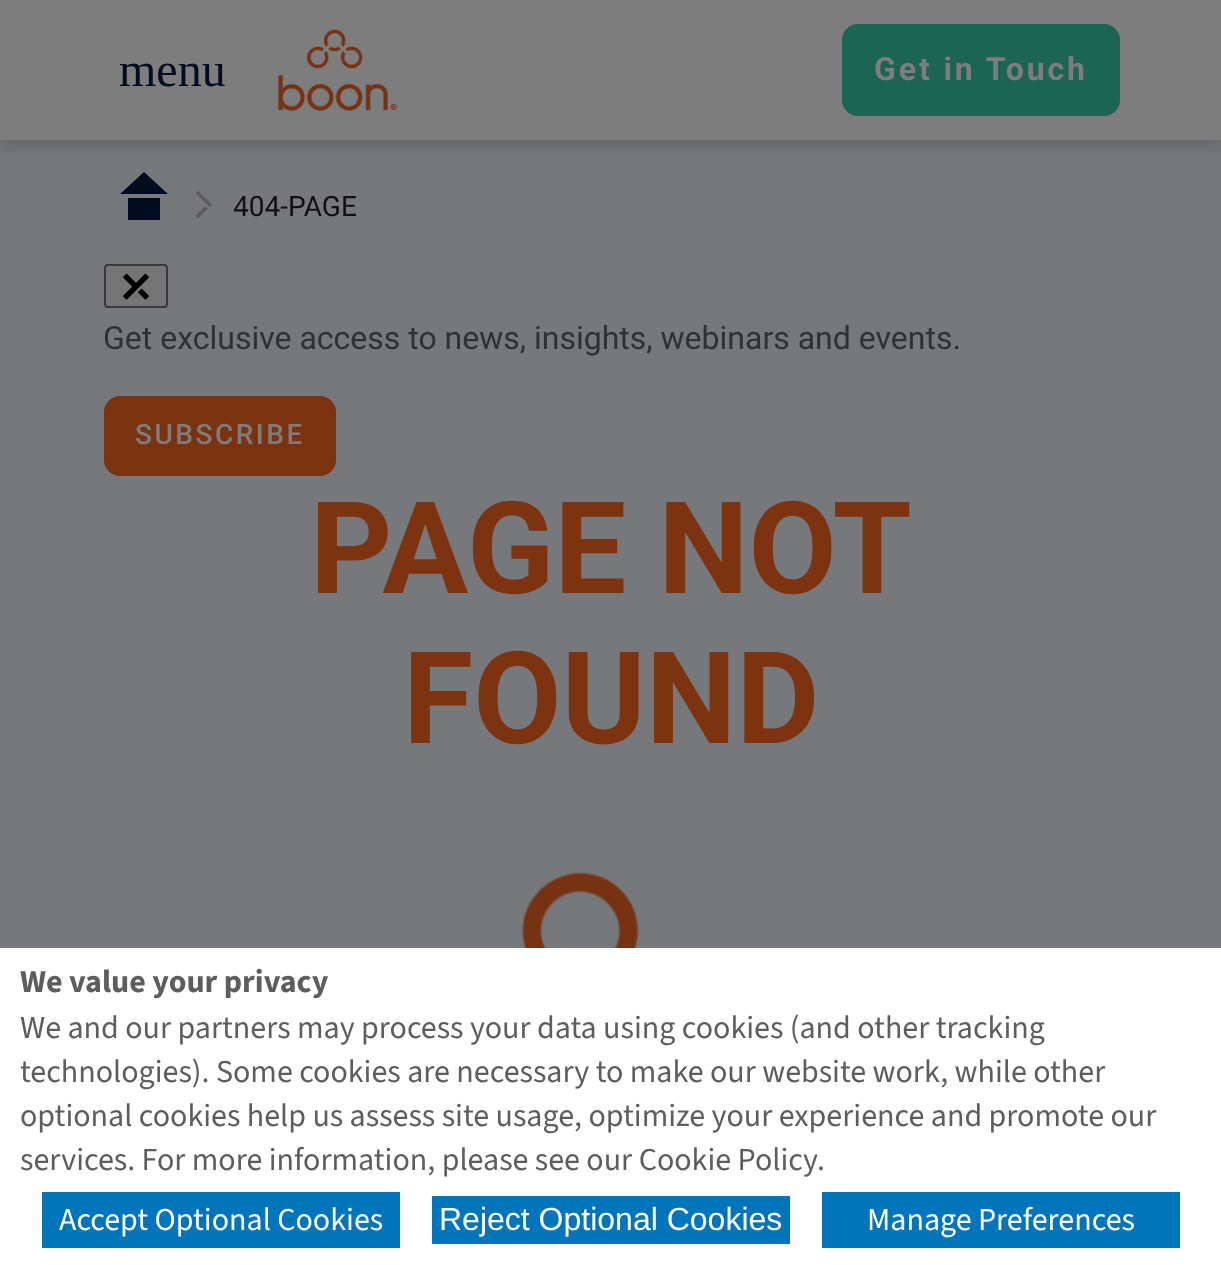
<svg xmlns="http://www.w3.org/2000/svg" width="1221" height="1265">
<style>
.a{font:48px Liberation Serif;fill:#000c20}
.b{font:bold 32px Roboto;letter-spacing:2.9px;fill:#7d7d7d}
.c{font:28px Roboto;fill:#111}
.d{font:32px Roboto;fill:#2d3237}
.e{font:500 28px Roboto;letter-spacing:2.5px;fill:#7d7d7d}
.f{font:bold 128px Roboto;fill:#7d3210}
.g{font:bold 32px 'Source Sans 3';fill:#5d5d5d}
.h{font:32px 'Source Sans 3';fill:#5d5d5d}
.i{font:32px 'Source Sans 3';fill:#fff}
.j{font:32px Liberation Sans;fill:#fff}
</style>
<rect width="100%" height="100%" fill="#76787b"/>
<path fill="#000c20" d="M160 220h-32v-22h32zm-16-48l-24 22h48z"/>
<path fill="#00000026" filter="blur(8px)" d="M0 8h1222v140H0z"/>
<path fill="#7d7d7d" d="M0 0h1221v140H0z"/>
<image href="1.png" x="277" y="29" width="120" height="82"/>
<rect fill="#1c6453" x="842" y="24" width="278" height="92" rx="16"/>
<path fill="#5d5d5d" d="M209.5 207l-14-14l2.5-2.5l14 14zm-11.5 11.5l10-10l-3-2.5l-9.5 9.5z"/>
<rect fill="#757575" stroke="#3a3a3a" stroke-width="2" x="105" y="265" width="62" height="42" rx="3"/>
<image href="2.png" x="122" y="273" width="28" height="27"/>
<rect fill="#7d320f" x="104" y="396" width="232" height="80" rx="16"/>
<image href="3.png" x="521" y="872" width="118" height="76"/>
<path fill="#fff" d="M0 948h1221v317H0z"/>
<path fill="#0075bc" d="M42 1192h358v56H42z"/>
<path fill="#0075bc" d="M432 1196h358v48H432z"/>
<path fill="#0075bc" d="M822 1192h358v56H822z"/>
<text class="a" x="119" y="86">menu</text>
<text class="b" x="874" y="80">Get in Touch</text>
<text class="c" x="233" y="216">404-PAGE</text>
<text class="d" x="103" y="349">Get exclusive access to news, insights, webinars and events.</text>
<text class="e" x="135" y="444">SUBSCRIBE</text>
<text class="f" x="310" y="593">PAGE NOT</text>
<text class="f" x="403" y="743">FOUND</text>
<text class="g" x="20" y="992">We value your privacy</text>
<text class="h" x="20" y="1038">We and our partners may process your data using cookies (and other tracking</text>
<text class="h" x="20" y="1082">technologies). Some cookies are necessary to make our website work, while other</text>
<text class="h" x="20" y="1126">optional cookies help us assess site usage, optimize your experience and promote our</text>
<text class="h" x="20" y="1170">services. For more information, please see our Cookie Policy.</text>
<text class="i" x="59" y="1230">Accept Optional Cookies</text>
<text class="j" x="439" y="1230">Reject Optional Cookies</text>
<text class="i" x="867" y="1230">Manage Preferences</text>
</svg>
